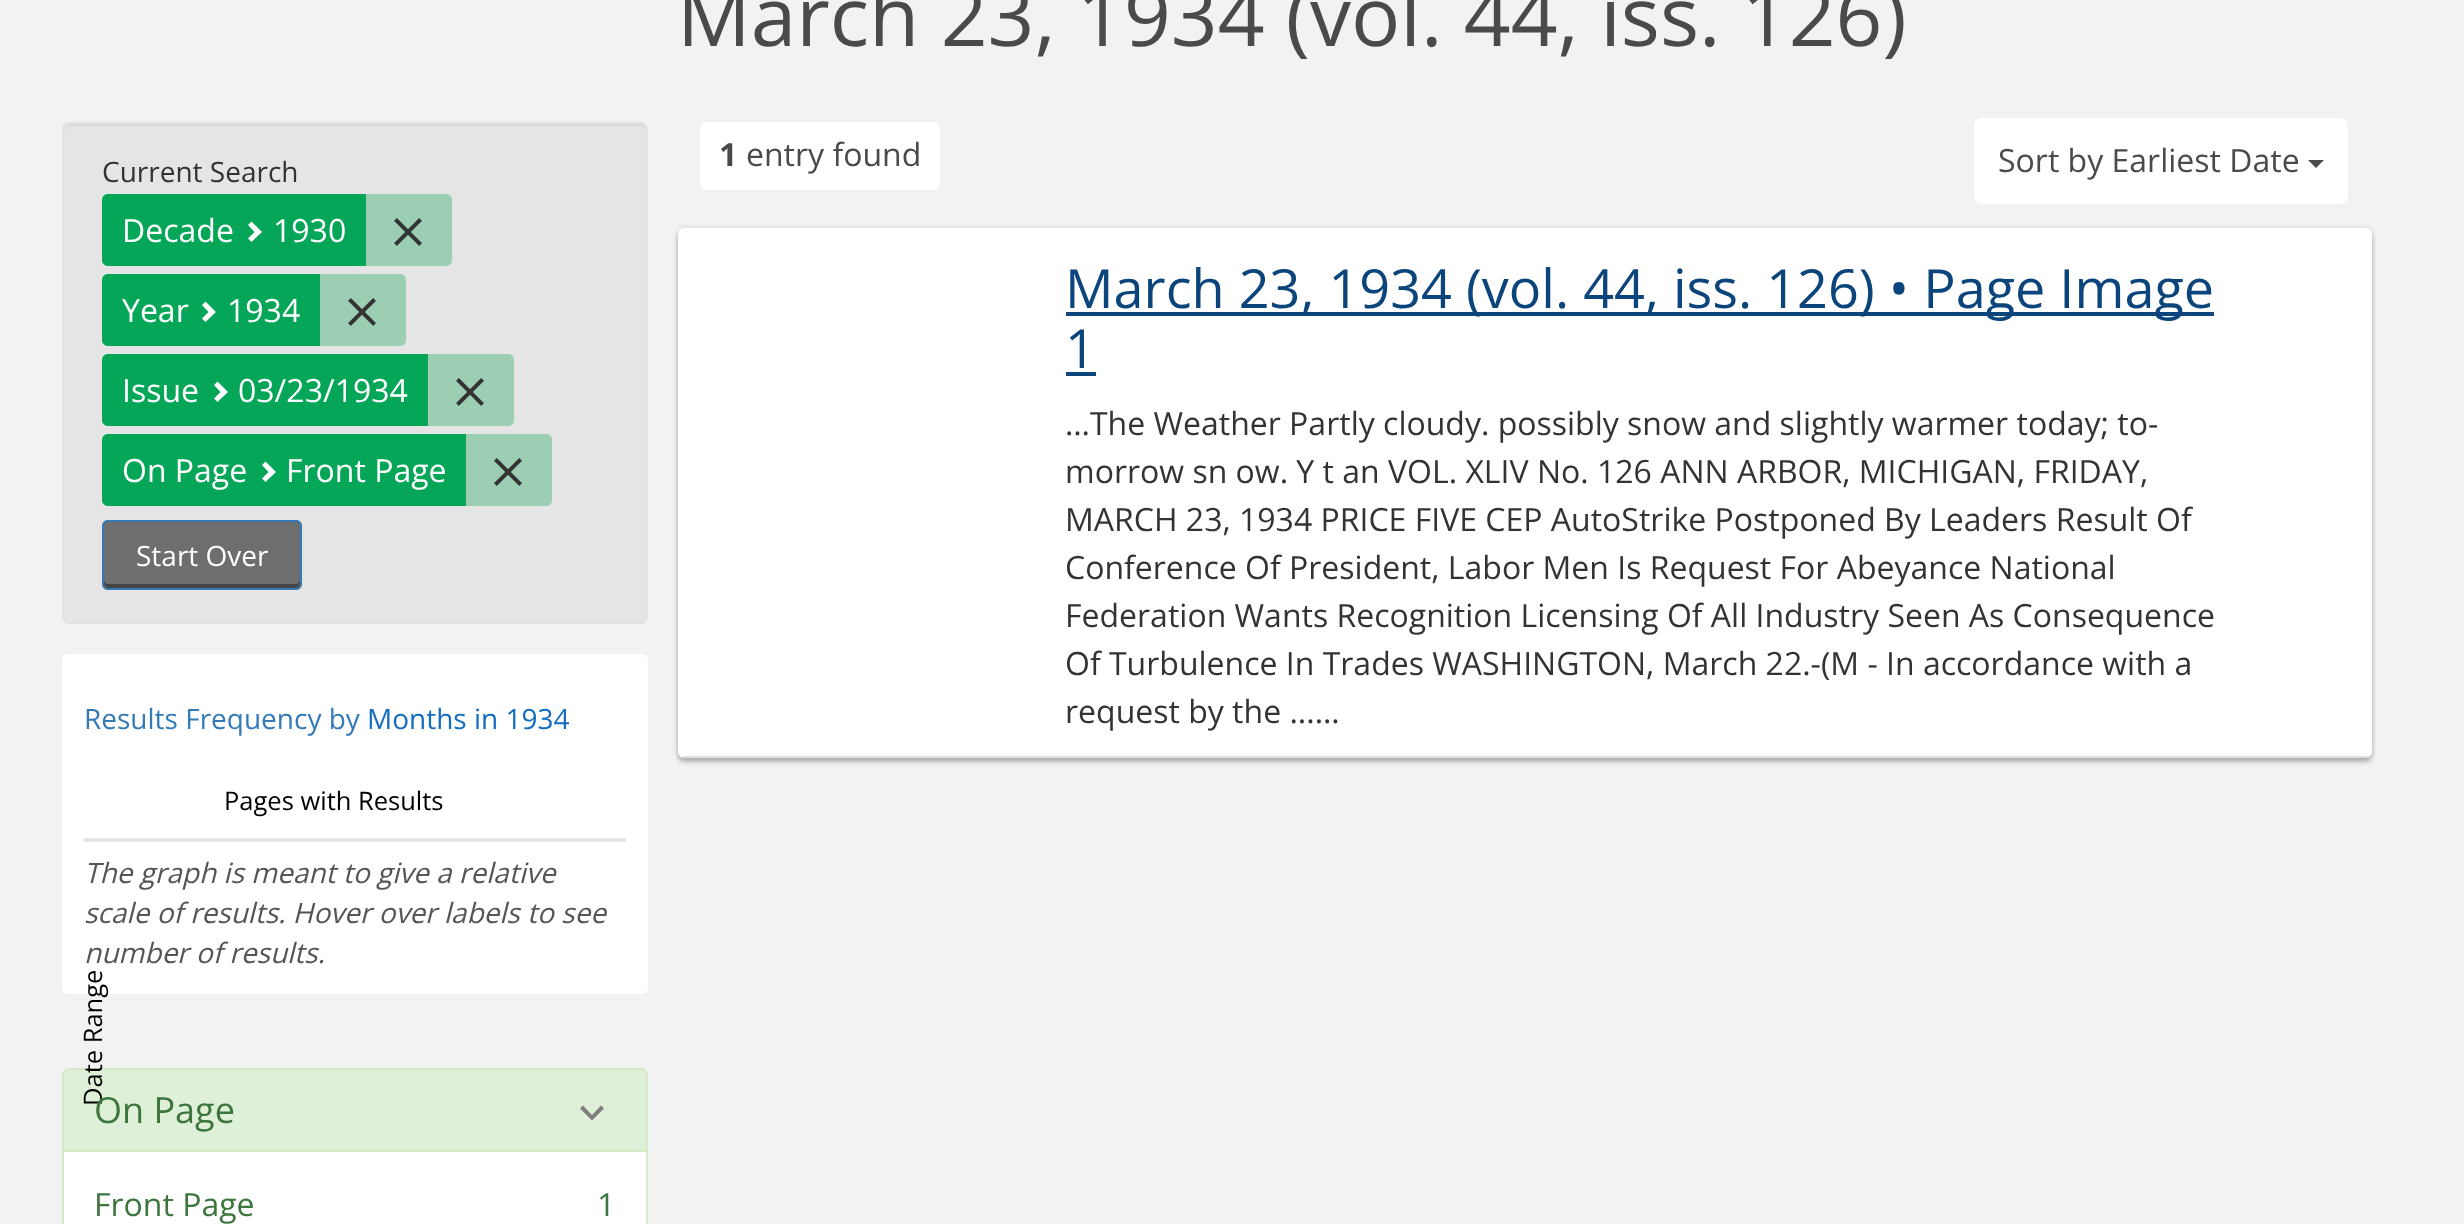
<svg xmlns="http://www.w3.org/2000/svg" width="2464" height="1224">
<style>
.a{font:82px Open Sans;fill:#4a4a4a}
.b{font:28px Open Sans;fill:#333}
.c{font:32px Open Sans;fill:#fff}
.d{font:28px Open Sans;fill:#fff}
.e{font:28px Open Sans;fill:#337ab7}
.f{font:28px Open Sans;fill:#126dc1}
.g{font:25.5px Open Sans;fill:#000}
.h{font:italic 28px Open Sans;fill:#555}
.i{font:36px Open Sans;fill:#3c763d}
.j{font:32px Open Sans;fill:#3c763d}
.k{font:bold 32px Open Sans;fill:#4a4a4a}
.l{font:32px Open Sans;fill:#4a4a4a}
.m{font:54px Open Sans;fill:#0b457b}
.n{font:32px Open Sans;fill:#333}
</style>
<rect width="100%" height="100%" fill="#f2f2f2"/>
<rect fill="#e5e5e5" x="62" y="122" width="586" height="502" rx="8"/>
<path fill="#dadada" d="M70 126h570c3 0 6 3 6 6c0-4-1-8-6-8h-570c-5 0-6 4-6 8c0-3 3-6 6-6z"/>
<rect fill="none" stroke="#e3e3e3" stroke-width="2" x="63" y="123" width="584" height="500" rx="7"/>
<path fill="#05a657" d="M108 194h258v72h-258c-3.5 0-6-2.5-6-6v-60c0-3.5 2.5-6 6-6z"/>
<path fill="#fff" d="M262 232l-10.5 10l-3.5-3.5l6.5-6.5l-6.5-7l3.5-3.5z"/>
<path fill="#1aa55a5c" d="M364 194h82c3.5 0 6 2.5 6 6v60c0 3.5-2.5 6-6 6h-82z"/>
<image href="1.png" x="394" y="218" width="28" height="28"/>
<path fill="#05a657" d="M108 274h212v72h-212c-3.5 0-6-2.5-6-6v-60c0-3.5 2.5-6 6-6z"/>
<path fill="#fff" d="M216 312l-10.5 10l-3.5-3.5l6.5-6.5l-6.5-7l3.5-3.5z"/>
<path fill="#1aa55a5c" d="M318 274h82c3.5 0 6 2.5 6 6v60c0 3.5-2.5 6-6 6h-82z"/>
<image href="1.png" x="348" y="298" width="28" height="28"/>
<path fill="#05a657" d="M108 354h320v72h-320c-3.5 0-6-2.5-6-6v-60c0-3.5 2.5-6 6-6z"/>
<path fill="#fff" d="M228 392l-10.5 10l-3.5-3.5l6.5-6.5l-6.5-7l3.5-3.5z"/>
<path fill="#1aa55a5c" d="M426 354h82c3.5 0 6 2.5 6 6v60c0 3.5-2.5 6-6 6h-82z"/>
<image href="1.png" x="456" y="378" width="28" height="28"/>
<path fill="#05a657" d="M108 434h358v72h-358c-3.5 0-6-2.5-6-6v-60c0-3.5 2.5-6 6-6z"/>
<path fill="#fff" d="M276 472l-10.5 10l-3.5-3.5l6.5-6.5l-6.5-7l3.5-3.5z"/>
<path fill="#1aa55a5c" d="M464 434h82c3.5 0 6 2.5 6 6v60c0 3.5-2.5 6-6 6h-82z"/>
<image href="1.png" x="494" y="458" width="28" height="28"/>
<rect fill="#6e6e6e" x="102" y="520" width="200" height="70" rx="6"/>
<path fill="#464646" d="M104 580v4c0 2 2 4 4 4h188c2 0 4-2 4-4v-4c0 2-2 4-4 4h-188c-2 0-4-2-4-4z"/>
<rect fill="none" stroke="#337ab7" stroke-width="2" x="103" y="521" width="198" height="68" rx="5"/>
<rect fill="#fff" stroke="#fff" stroke-width="2" x="63" y="655" width="584" height="338" rx="5"/>
<path fill="#e5e5e5" d="M84 838h542v4H84z"/>
<rect fill="#fff" stroke="#d6e9c6" stroke-width="2" x="63" y="1069" width="584" height="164" rx="7"/>
<path fill="#dff0d8" d="M70 1070h570c3.5 0 6 2.5 6 6v74h-582v-74c0-3.5 2.5-6 6-6z"/>
<path fill="#808080" d="M583 1105.5l9 9.5l9-9.5l3 3l-12 12l-12-12z"/>
<path fill="#d6e9c6" d="M64 1150h582v2H64z"/>
<rect fill="#fff" x="700" y="122" width="240" height="68" rx="6"/>
<rect fill="#fff" x="1974" y="118" width="374" height="86" rx="8"/>
<path fill="#4a4a4a" d="M2308 160h16l-8 8z"/>
<rect fill="#0000001f" filter="blur(3px)" x="678" y="228" width="1694" height="530" rx="6"/>
<rect fill="#0000003d" filter="blur(2px)" x="678" y="232" width="1694" height="530" rx="6"/>
<rect fill="#fff" x="678" y="228" width="1694" height="530" rx="6"/>
<path fill="#ddd" d="M682 756h1688v2H682z"/>
<path fill="#0b457b" d="M1066 312h1148v4H1066z"/>
<path fill="#0b457b" d="M1066 372h30v4H1066z"/>
<text class="a" x="677" y="46">March 23, 1934 (vol. 44, iss. 126)</text>
<text class="b" x="102" y="182">Current Search</text>
<text class="c" x="122" y="242">Decade</text>
<text class="c" x="273" y="242">1930</text>
<text class="c" x="122" y="322">Year</text>
<text class="c" x="227" y="322">1934</text>
<text class="c" x="122" y="402">Issue</text>
<text class="c" x="238" y="402">03/23/1934</text>
<text class="c" x="122" y="482">On Page</text>
<text class="c" x="286" y="482">Front Page</text>
<text class="d" x="136" y="566">Start Over</text>
<text class="e" x="84" y="729">Results Frequency by</text>
<text class="f" x="367" y="729">Months in 1934</text>
<text class="g" x="224" y="810">Pages with Results</text>
<text class="g" x="102" y="1106" transform="rotate(-90 102 1106)">Date Range</text>
<text class="h" x="84" y="883">The graph is meant to give a relative</text>
<text class="h" x="84" y="923">scale of results. Hover over labels to see</text>
<text class="h" x="84" y="963">number of results.</text>
<text class="i" x="94" y="1123">On Page</text>
<text class="j" x="94" y="1216">Front Page</text>
<text class="j" x="597" y="1216">1</text>
<text class="k" x="719" y="166">1</text>
<text class="l" x="746" y="166">entry found</text>
<text class="l" x="1998" y="172">Sort by Earliest Date</text>
<text class="m" x="1065" y="308">March 23, 1934 (vol. 44, iss. 126) • Page Image</text>
<text class="m" x="1065" y="368">1</text>
<text class="n" x="1065" y="435">…The Weather Partly cloudy. possibly snow and slightly warmer today; to-</text>
<text class="n" x="1065" y="483">morrow sn ow. Y t an VOL. XLIV No. 126 ANN ARBOR, MICHIGAN, FRIDAY,</text>
<text class="n" x="1065" y="531">MARCH 23, 1934 PRICE FIVE CEP AutoStrike Postponed By Leaders Result Of</text>
<text class="n" x="1065" y="579">Conference Of President, Labor Men Is Request For Abeyance National</text>
<text class="n" x="1065" y="627">Federation Wants Recognition Licensing Of All Industry Seen As Consequence</text>
<text class="n" x="1065" y="675">Of Turbulence In Trades WASHINGTON, March 22.-(M - In accordance with a</text>
<text class="n" x="1065" y="723">request by the ...…</text>
</svg>
